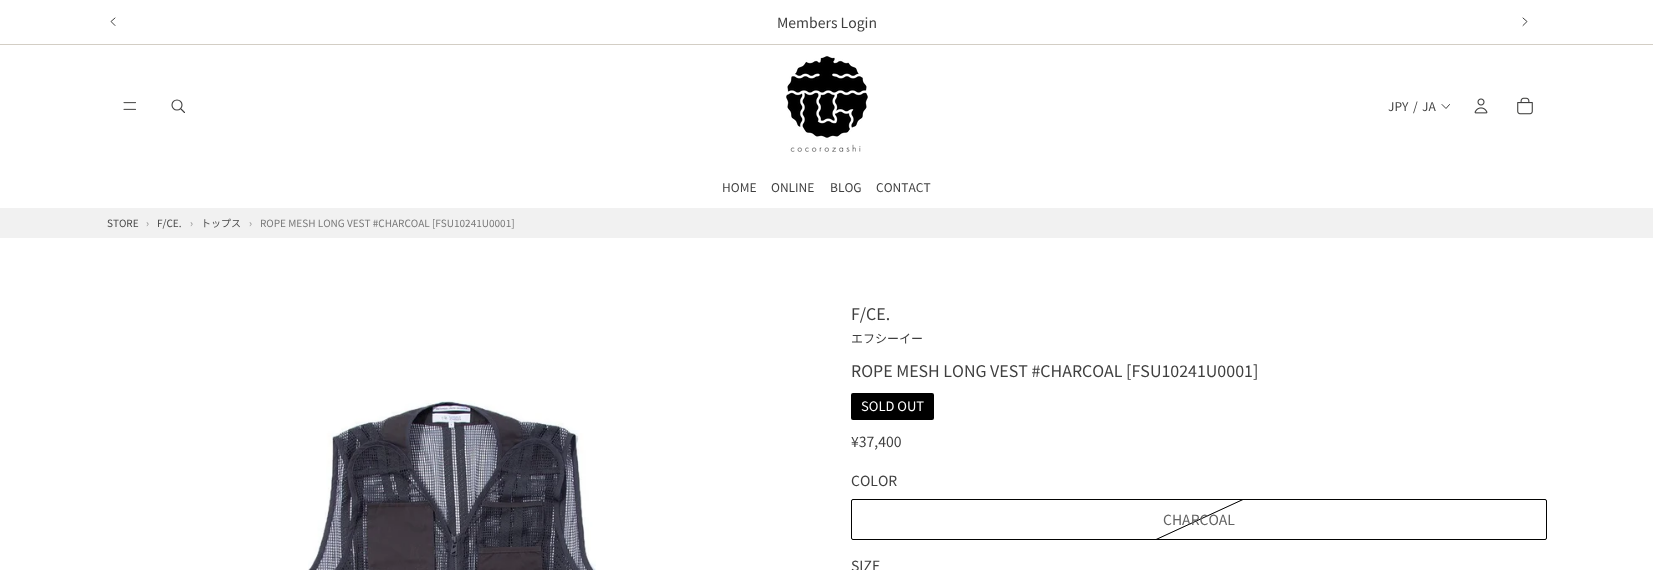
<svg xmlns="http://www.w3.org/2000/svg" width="1653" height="570">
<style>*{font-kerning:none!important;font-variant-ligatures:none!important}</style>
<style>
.a{font:14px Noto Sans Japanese;fill:#3f3f3f}
.b{font:12px Noto Sans Japanese;fill:#3f3f3f}
.c{font:10px Noto Sans Japanese;fill:#484848}
.d{font:10px Noto Sans Japanese;fill:#919191}
.e{font:10px Noto Sans Japanese;fill:#797979}
.f{font:16px Noto Sans Japanese;fill:#3f3f3f}
.g{font:13px Noto Sans Japanese;fill:#fff}
.h{font:14px Noto Sans Japanese;fill:#636363}
</style>
<defs>
<clipPath id="clip1"><path d="M852 500h694v39H852z"/></clipPath>
</defs>
<rect width="100%" height="100%" fill="#fff"/>
<path fill="#d3cec5" d="M0 44h1653v1H0z"/>
<path fill="none" stroke="#3f3f3f" stroke-linecap="round" stroke-linejoin="round" d="M115 18l-4 3.5l4 4"/>
<path fill="none" stroke="#3f3f3f" stroke-linecap="round" stroke-linejoin="round" d="M1523 18l4 3.5l-4 4"/>
<image href="1.png" x="123" y="102" width="13" height="8"/>
<circle fill="none" stroke="#3f3f3f" stroke-width="1.1" cx="177" cy="105" r="5"/>
<path fill="none" stroke="#3f3f3f" stroke-width="1.1" stroke-linecap="round" stroke-linejoin="round" d="M181 109l3.5 3.5"/>
<image href="2.png" x="786" y="56" width="82" height="96"/>
<path fill="none" stroke="#3f3f3f" stroke-linecap="round" stroke-linejoin="round" d="M1449.5 104.5l-3.5 4l-4-4"/>
<image href="3.png" x="1474" y="98" width="14" height="16"/>
<image href="4.png" x="1517" y="97" width="16" height="18"/>
<path fill="#f1f1f1" d="M0 208h1653v30H0z"/>
<image href="5.png" x="308" y="400" width="288" height="170"/>
<rect fill="#000" x="851" y="393" width="83" height="27" rx="2"/>
<g clip-path="url(#clip1)">
<path fill="none" stroke="#e3e3e3" d="M1546 360l-694 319.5"/>
<path fill="none" stroke="#000" d="M1546 360l-694 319.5"/>
</g>
<rect fill="none" stroke="#e3e3e3" x="851.5" y="499.5" width="695" height="40" rx="1.5"/>
<rect fill="none" stroke="#030302" x="851.5" y="499.5" width="695" height="40" rx="1.5"/>
<text class="a" x="777" y="28">Members Login</text>
<text class="b" x="1388" y="111">JPY</text>
<text class="b" x="1413" y="111">/</text>
<text class="b" x="1422" y="111">JA</text>
<text class="b" x="722" y="192">HOME</text>
<text class="b" x="771" y="192">ONLINE</text>
<text class="b" x="830" y="192">BLOG</text>
<text class="b" x="876" y="192">CONTACT</text>
<text class="c" x="107" y="227">STORE</text>
<text class="d" x="146" y="227">›</text>
<text class="c" x="157" y="227">F/CE.</text>
<text class="d" x="190" y="227">›</text>
<text class="c" x="201" y="227">トップス</text>
<text class="d" x="249" y="227">›</text>
<text class="e" x="260" y="227">ROPE MESH LONG VEST #CHARCOAL [FSU10241U0001]</text>
<text class="f" x="851" y="320">F/CE.</text>
<text class="b" x="851" y="343">エフシーイー</text>
<text class="f" x="851" y="377">ROPE MESH LONG VEST #CHARCOAL [FSU10241U0001]</text>
<text class="g" x="861" y="411">SOLD OUT</text>
<text class="a" x="851" y="447">¥37,400</text>
<text class="a" x="851" y="486">COLOR</text>
<text class="h" x="1163" y="525">CHARCOAL</text>
<text class="a" x="851" y="571">SIZE</text>
</svg>
